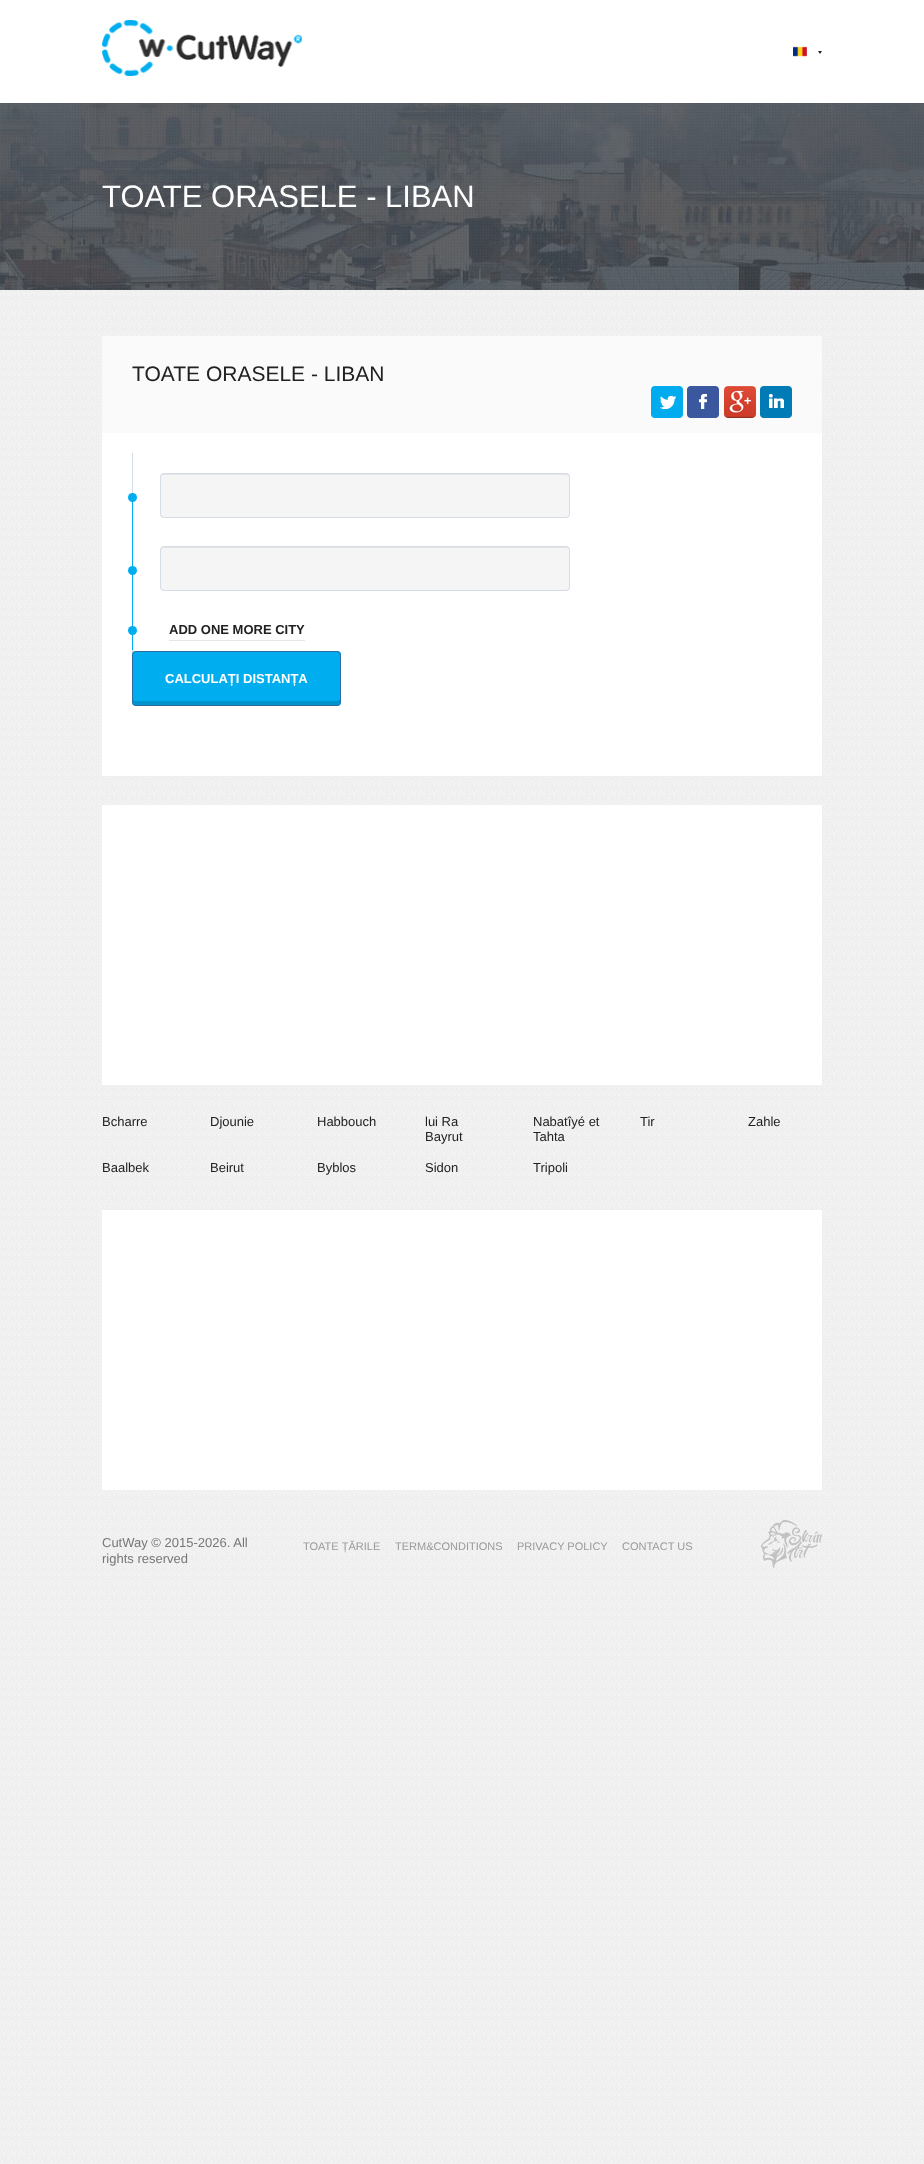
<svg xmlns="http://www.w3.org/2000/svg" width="924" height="2164">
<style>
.a{font:31px Liberation Sans;fill:#fffefe}
.b{font:21px Liberation Sans;fill:#212121}
.c{font:bold 13px Liberation Sans;fill:#212121}
.d{font:bold 13px Liberation Sans;fill:#fffefe}
.e{font:13px Liberation Sans;fill:#212121}
.f{font:13px Liberation Sans;fill:#777}
.g{font:11px Liberation Sans;fill:#999}
</style>
<rect width="100%" height="100%" fill="#fff"/>
<image href="1.png" x="0" y="291" width="924" height="1873"/>
<image href="2.png" x="102" y="20" width="200" height="56"/>
<image href="3.png" x="793" y="46" width="14" height="11"/>
<path fill="#212121" d="M818 51h4l-2 3z"/>
<image href="4.png" x="0" y="103" width="924" height="187"/>
<path fill="#eee" d="M0 290h924v1H0z"/>
<path fill="#fff" d="M102 433h720v343H102z"/>
<path fill="#fafafa" d="M102 336h720v97H102z"/>
<image href="5.png" x="651" y="386" width="32" height="32"/>
<image href="6.png" x="687" y="386" width="32" height="32"/>
<image href="7.png" x="724" y="386" width="32" height="32"/>
<image href="8.png" x="760" y="386" width="32" height="32"/>
<path fill="#d4dce7" d="M132 453h1v208H132z"/>
<path fill="#00aef0" d="M132 493h1v157H132z"/>
<circle fill="#00aef0" cx="132.5" cy="497.5" r="4.5"/>
<rect fill="#f5f5f5" x="160" y="473" width="410" height="45" rx="4"/>
<path fill="#e3e3e3" d="M164 475h402c2 0 3 1 3 3c0-2-1-4-3-4h-402c-2 0-3 2-3 4c0-2 1-3 3-3z"/>
<rect fill="none" stroke="#d4dce7" x="160.5" y="473.5" width="409" height="44" rx="3.5"/>
<circle fill="#00aef0" cx="132.5" cy="630.5" r="4.5"/>
<circle fill="#00aef0" cx="132.5" cy="570.5" r="4.5"/>
<rect fill="#f5f5f5" x="160" y="546" width="410" height="45" rx="4"/>
<path fill="#e3e3e3" d="M164 548h402c2 0 3 1 3 3c0-2-1-4-3-4h-402c-2 0-3 2-3 4c0-2 1-3 3-3z"/>
<rect fill="none" stroke="#d4dce7" x="160.5" y="546.5" width="409" height="44" rx="3.5"/>
<path fill="#e6e6e6" d="M169 640h136v1H169z"/>
<rect fill="#00aef0" x="132" y="651" width="209" height="55" rx="4"/>
<path fill="#0094cc" d="M133 698v4c0 2 1 3 3 3h201c2 0 3-1 3-3v-4c0 2-1 3-3 3h-201c-2 0-3-1-3-3z"/>
<rect fill="none" stroke="#2e6da4" x="132.5" y="651.5" width="208" height="54" rx="3.5"/>
<path fill="#fff" d="M102 805h720v280H102z"/>
<path fill="#fff" d="M102 1210h720v280H102z"/>
<image href="9.png" x="761" y="1520" width="61" height="48"/>
<text class="a" x="102" y="207">TOATE ORASELE - LIBAN</text>
<text class="b" x="132" y="381">TOATE ORASELE - LIBAN</text>
<text class="c" x="169" y="634">ADD ONE MORE CITY</text>
<text class="d" x="165" y="683">CALCULAȚI DISTANȚA</text>
<text class="e" x="102" y="1126">Bcharre</text>
<text class="e" x="210" y="1126">Djounie</text>
<text class="e" x="317" y="1126">Habbouch</text>
<text class="e" x="425" y="1126">lui Ra</text>
<text class="e" x="425" y="1141">Bayrut</text>
<text class="e" x="533" y="1126">Nabatîyé et</text>
<text class="e" x="533" y="1141">Tahta</text>
<text class="e" x="640" y="1126">Tir</text>
<text class="e" x="748" y="1126">Zahle</text>
<text class="e" x="102" y="1172">Baalbek</text>
<text class="e" x="210" y="1172">Beirut</text>
<text class="e" x="317" y="1172">Byblos</text>
<text class="e" x="425" y="1172">Sidon</text>
<text class="e" x="533" y="1172">Tripoli</text>
<text class="f" x="102" y="1547">CutWay © 2015-2026. All</text>
<text class="f" x="102" y="1563">rights reserved</text>
<text class="g" x="303" y="1550">TOATE ȚĂRILE</text>
<text class="g" x="395" y="1550">TERM&amp;CONDITIONS</text>
<text class="g" x="517" y="1550">PRIVACY POLICY</text>
<text class="g" x="622" y="1550">CONTACT US</text>
</svg>
